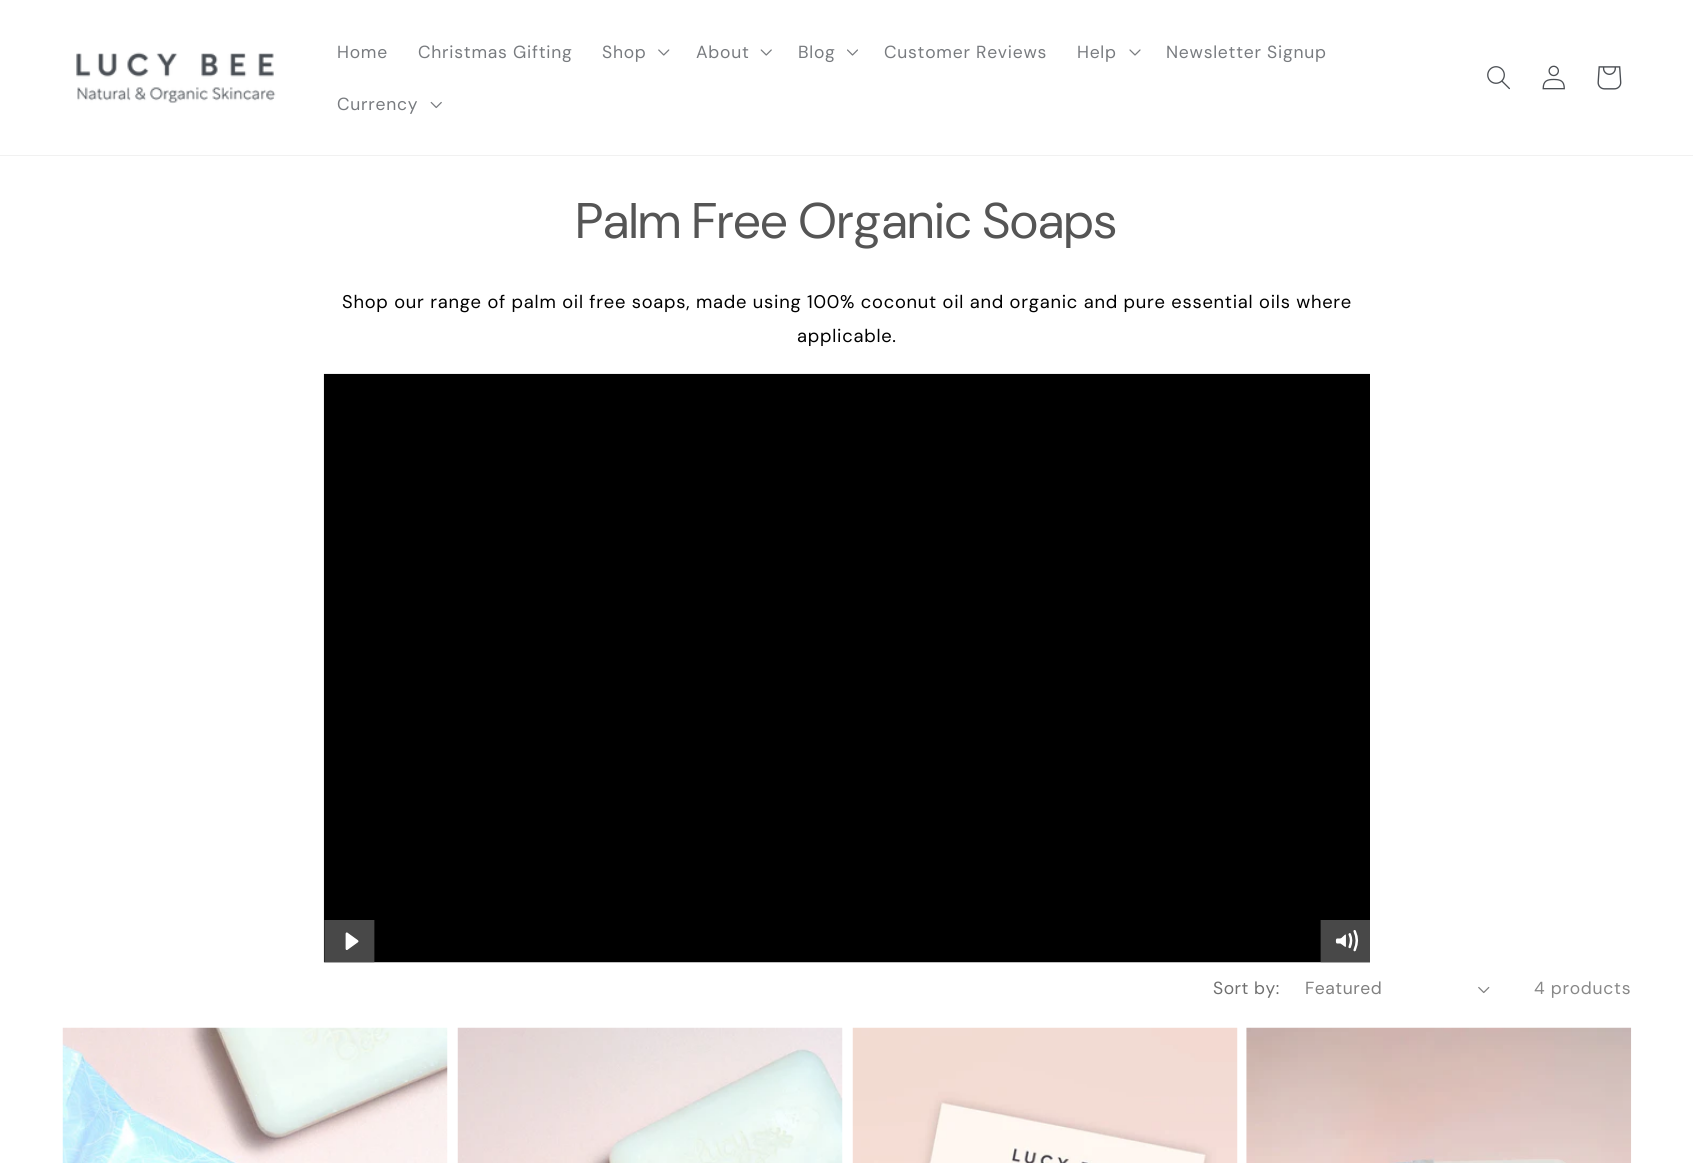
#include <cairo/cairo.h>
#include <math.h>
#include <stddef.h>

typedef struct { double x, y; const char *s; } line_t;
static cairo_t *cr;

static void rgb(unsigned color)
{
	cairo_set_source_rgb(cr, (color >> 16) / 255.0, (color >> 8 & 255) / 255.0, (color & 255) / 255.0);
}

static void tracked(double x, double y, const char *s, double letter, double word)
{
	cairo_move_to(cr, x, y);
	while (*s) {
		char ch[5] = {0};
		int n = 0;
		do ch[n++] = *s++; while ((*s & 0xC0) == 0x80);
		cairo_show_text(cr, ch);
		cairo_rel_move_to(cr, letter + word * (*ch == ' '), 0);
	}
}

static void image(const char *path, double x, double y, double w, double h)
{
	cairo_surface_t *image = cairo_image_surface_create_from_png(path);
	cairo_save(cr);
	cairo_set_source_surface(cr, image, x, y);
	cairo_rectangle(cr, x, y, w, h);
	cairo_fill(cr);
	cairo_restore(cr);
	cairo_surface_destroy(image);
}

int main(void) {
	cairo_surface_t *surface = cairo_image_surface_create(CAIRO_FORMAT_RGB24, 1693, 1163);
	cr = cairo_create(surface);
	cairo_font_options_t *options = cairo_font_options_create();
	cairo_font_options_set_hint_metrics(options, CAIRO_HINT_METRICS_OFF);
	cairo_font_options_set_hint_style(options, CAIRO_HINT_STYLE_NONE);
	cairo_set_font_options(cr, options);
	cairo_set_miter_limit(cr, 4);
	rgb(0xffffff);
	cairo_paint(cr);
	rgb(0xf1f1f1);
	cairo_rectangle(cr, 0, 155, 1693, 1);
	cairo_fill(cr);
	image("img/1.png", 76, 52, 200, 52);
	image("img/2.png", 658, 49, 12, 7);
	image("img/3.png", 760, 49, 12, 7);
	image("img/4.png", 847, 49, 11, 7);
	image("img/5.png", 1129, 49, 12, 7);
	image("img/6.png", 430, 101, 12, 8);
	image("img/7.png", 1487, 66, 23, 24);
	image("img/8.png", 1542, 65, 23, 25);
	image("img/9.png", 1597, 66, 25, 24);
	image("img/10.png", 323, 373, 1047, 590);
	image("img/11.png", 1478, 986, 12, 8);
	image("img/12.png", 62, 1027, 386, 136);
	image("img/13.png", 457, 1027, 386, 136);
	image("img/14.png", 852, 1027, 386, 136);
	image("img/15.png", 1246, 1027, 386, 136);
	cairo_select_font_face(cr, "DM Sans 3", CAIRO_FONT_SLANT_NORMAL, CAIRO_FONT_WEIGHT_NORMAL);
	cairo_set_font_size(cr, 17.5);
	rgb(0x787b7f);
	{
		static const line_t items[] = {
			{337, 58, "Home"},
			{418, 58, "Christmas Gifting"},
			{602, 58, "Shop"},
			{696, 58, "About"},
			{798, 58, "Blog"},
			{884, 58, "Customer Reviews"},
			{1077, 58, "Help"},
			{1166, 58, "Newsletter Signup"},
			{337, 110, "Currency"},
		};
		for (size_t i = 0; i < sizeof items / sizeof *items; i++) {
			tracked(items[i].x, items[i].y, items[i].s, 0.75, 0);
		}
	}
	cairo_select_font_face(cr, "DM Sans", CAIRO_FONT_SLANT_NORMAL, CAIRO_FONT_WEIGHT_NORMAL);
	cairo_set_font_size(cr, 50);
	rgb(0x555555);
	tracked(576, 238, "Palm Free Organic Soaps", 0.75, 0);
	cairo_select_font_face(cr, "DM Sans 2", CAIRO_FONT_SLANT_NORMAL, CAIRO_FONT_WEIGHT_NORMAL);
	cairo_set_font_size(cr, 18.33);
	rgb(0x000000);
	tracked(342, 308, "Shop our range of palm oil free soaps, made using 100% coconut oil and organic and pure essential oils where", 0.75, 0);
	tracked(797, 342, "applicable.", 0.75, 0);
	cairo_select_font_face(cr, "DM Sans 3", CAIRO_FONT_SLANT_NORMAL, CAIRO_FONT_WEIGHT_NORMAL);
	cairo_set_font_size(cr, 17.5);
	rgb(0x6f6f6f);
	tracked(1213, 994, "Sort by:", 0.5, 0);
	rgb(0x808080);
	tracked(1305, 994, "Featured", 0.5, 0);
	rgb(0x888888);
	tracked(1534, 994, "4 products", 0.75, 0);
	cairo_surface_write_to_png(surface, "page.png");
	cairo_font_options_destroy(options);
	cairo_destroy(cr);
	cairo_surface_destroy(surface);
	return 0;
}
